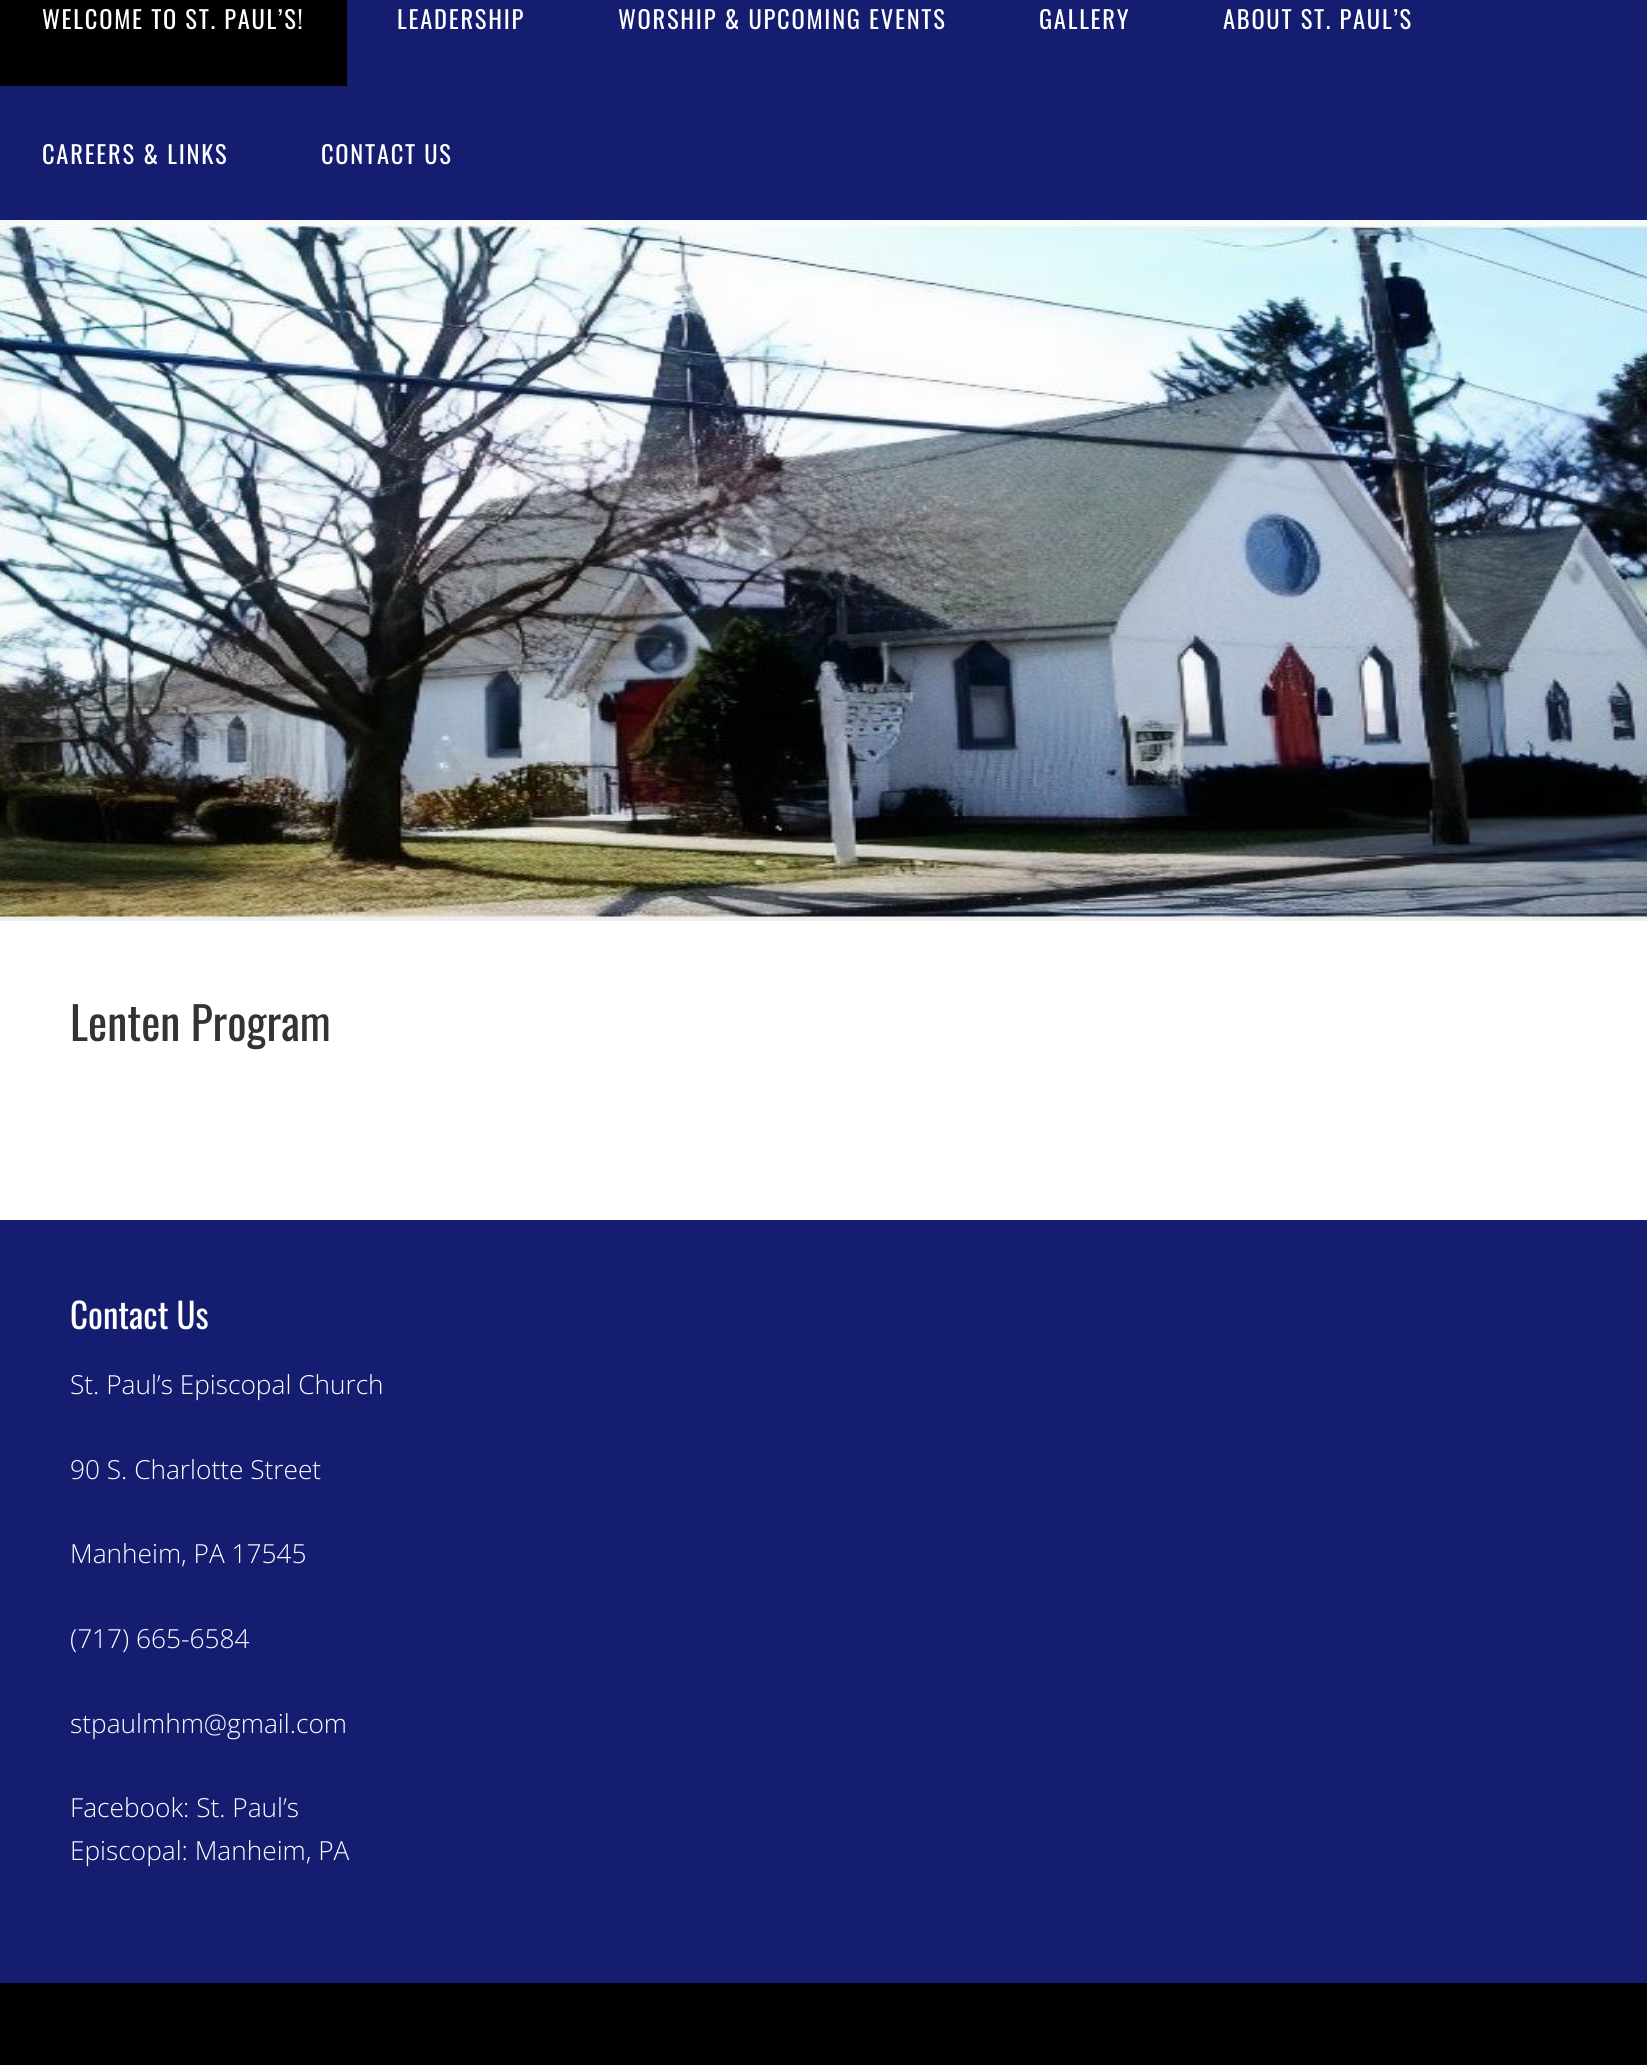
#include <cairo/cairo.h>
#include <math.h>
#include <stddef.h>

typedef struct { double x, y; const char *s; } line_t;
typedef struct { double x, y, w, h; unsigned color; } box_t;
static cairo_t *cr;

static void rgb(unsigned color)
{
	cairo_set_source_rgb(cr, (color >> 16) / 255.0, (color >> 8 & 255) / 255.0, (color & 255) / 255.0);
}

static void tracked(double x, double y, const char *s, double letter, double word)
{
	cairo_move_to(cr, x, y);
	while (*s) {
		char ch[5] = {0};
		int n = 0;
		do ch[n++] = *s++; while ((*s & 0xC0) == 0x80);
		cairo_show_text(cr, ch);
		cairo_rel_move_to(cr, letter + word * (*ch == ' '), 0);
	}
}

static void image(const char *path, double x, double y, double w, double h)
{
	cairo_surface_t *image = cairo_image_surface_create_from_png(path);
	cairo_save(cr);
	cairo_set_source_surface(cr, image, x, y);
	cairo_rectangle(cr, x, y, w, h);
	cairo_fill(cr);
	cairo_restore(cr);
	cairo_surface_destroy(image);
}

int main(void) {
	cairo_surface_t *surface = cairo_image_surface_create(CAIRO_FORMAT_RGB24, 1647, 2065);
	cr = cairo_create(surface);
	cairo_font_options_t *options = cairo_font_options_create();
	cairo_font_options_set_hint_metrics(options, CAIRO_HINT_METRICS_OFF);
	cairo_font_options_set_hint_style(options, CAIRO_HINT_STYLE_NONE);
	cairo_set_font_options(cr, options);
	cairo_set_miter_limit(cr, 4);
	rgb(0xededed);
	cairo_paint(cr);
	rgb(0x141d70);
	cairo_rectangle(cr, 0, 0, 1647, 220);
	cairo_fill(cr);
	rgb(0x000000);
	cairo_rectangle(cr, 0, 0, 347, 86);
	cairo_fill(cr);
	image("img/1.png", 0, 220, 1647, 697);
	{
		static const box_t items[] = {
			{0, 921, 1647, 299, 0xffffff},
			{0, 1220, 1647, 763, 0x141d70},
			{0, 1983, 1647, 82, 0x000000},
		};
		for (size_t i = 0; i < sizeof items / sizeof *items; i++) {
			rgb(items[i].color);
			cairo_rectangle(cr, items[i].x, items[i].y, items[i].w, items[i].h);
			cairo_fill(cr);
		}
	}
	cairo_select_font_face(cr, "Oswald", CAIRO_FONT_SLANT_NORMAL, CAIRO_FONT_WEIGHT_NORMAL);
	cairo_set_font_size(cr, 24.5);
	rgb(0xffffff);
	{
		static const line_t items[] = {
			{42, 29, "WELCOME TO ST. PAUL’S!"},
			{397, 29, "LEADERSHIP"},
			{618, 29, "WORSHIP & UPCOMING EVENTS"},
			{1039, 29, "GALLERY"},
			{1223, 29, "ABOUT ST. PAUL’S"},
			{42, 164, "CAREERS & LINKS"},
			{321, 164, "CONTACT US"},
		};
		for (size_t i = 0; i < sizeof items / sizeof *items; i++) {
			tracked(items[i].x, items[i].y, items[i].s, 1.75, 0);
		}
	}
	cairo_set_font_size(cr, 45.5);
	rgb(0x333333);
	cairo_move_to(cr, 70, 1041);
	cairo_show_text(cr, "Lenten Program");
	cairo_set_font_size(cr, 35);
	rgb(0xffffff);
	cairo_move_to(cr, 70, 1329);
	cairo_show_text(cr, "Contact Us");
	cairo_select_font_face(cr, "Open Sans Light", CAIRO_FONT_SLANT_NORMAL, CAIRO_FONT_WEIGHT_NORMAL);
	cairo_set_font_size(cr, 26.25);
	{
		static const line_t items[] = {
			{70, 1394, "St. Paul’s Episcopal Church"},
			{70, 1479, "90 S. Charlotte Street"},
			{70, 1563, "Manheim, PA 17545"},
			{70, 1648, "(717) 665-6584"},
			{70, 1733, "stpaulmhm@gmail.com"},
			{70, 1817, "Facebook: St. Paul’s"},
			{70, 1860, "Episcopal: Manheim, PA"},
		};
		for (size_t i = 0; i < sizeof items / sizeof *items; i++) {
			cairo_move_to(cr, items[i].x, items[i].y);
			cairo_show_text(cr, items[i].s);
		}
	}
	cairo_surface_write_to_png(surface, "page.png");
	cairo_font_options_destroy(options);
	cairo_destroy(cr);
	cairo_surface_destroy(surface);
	return 0;
}
